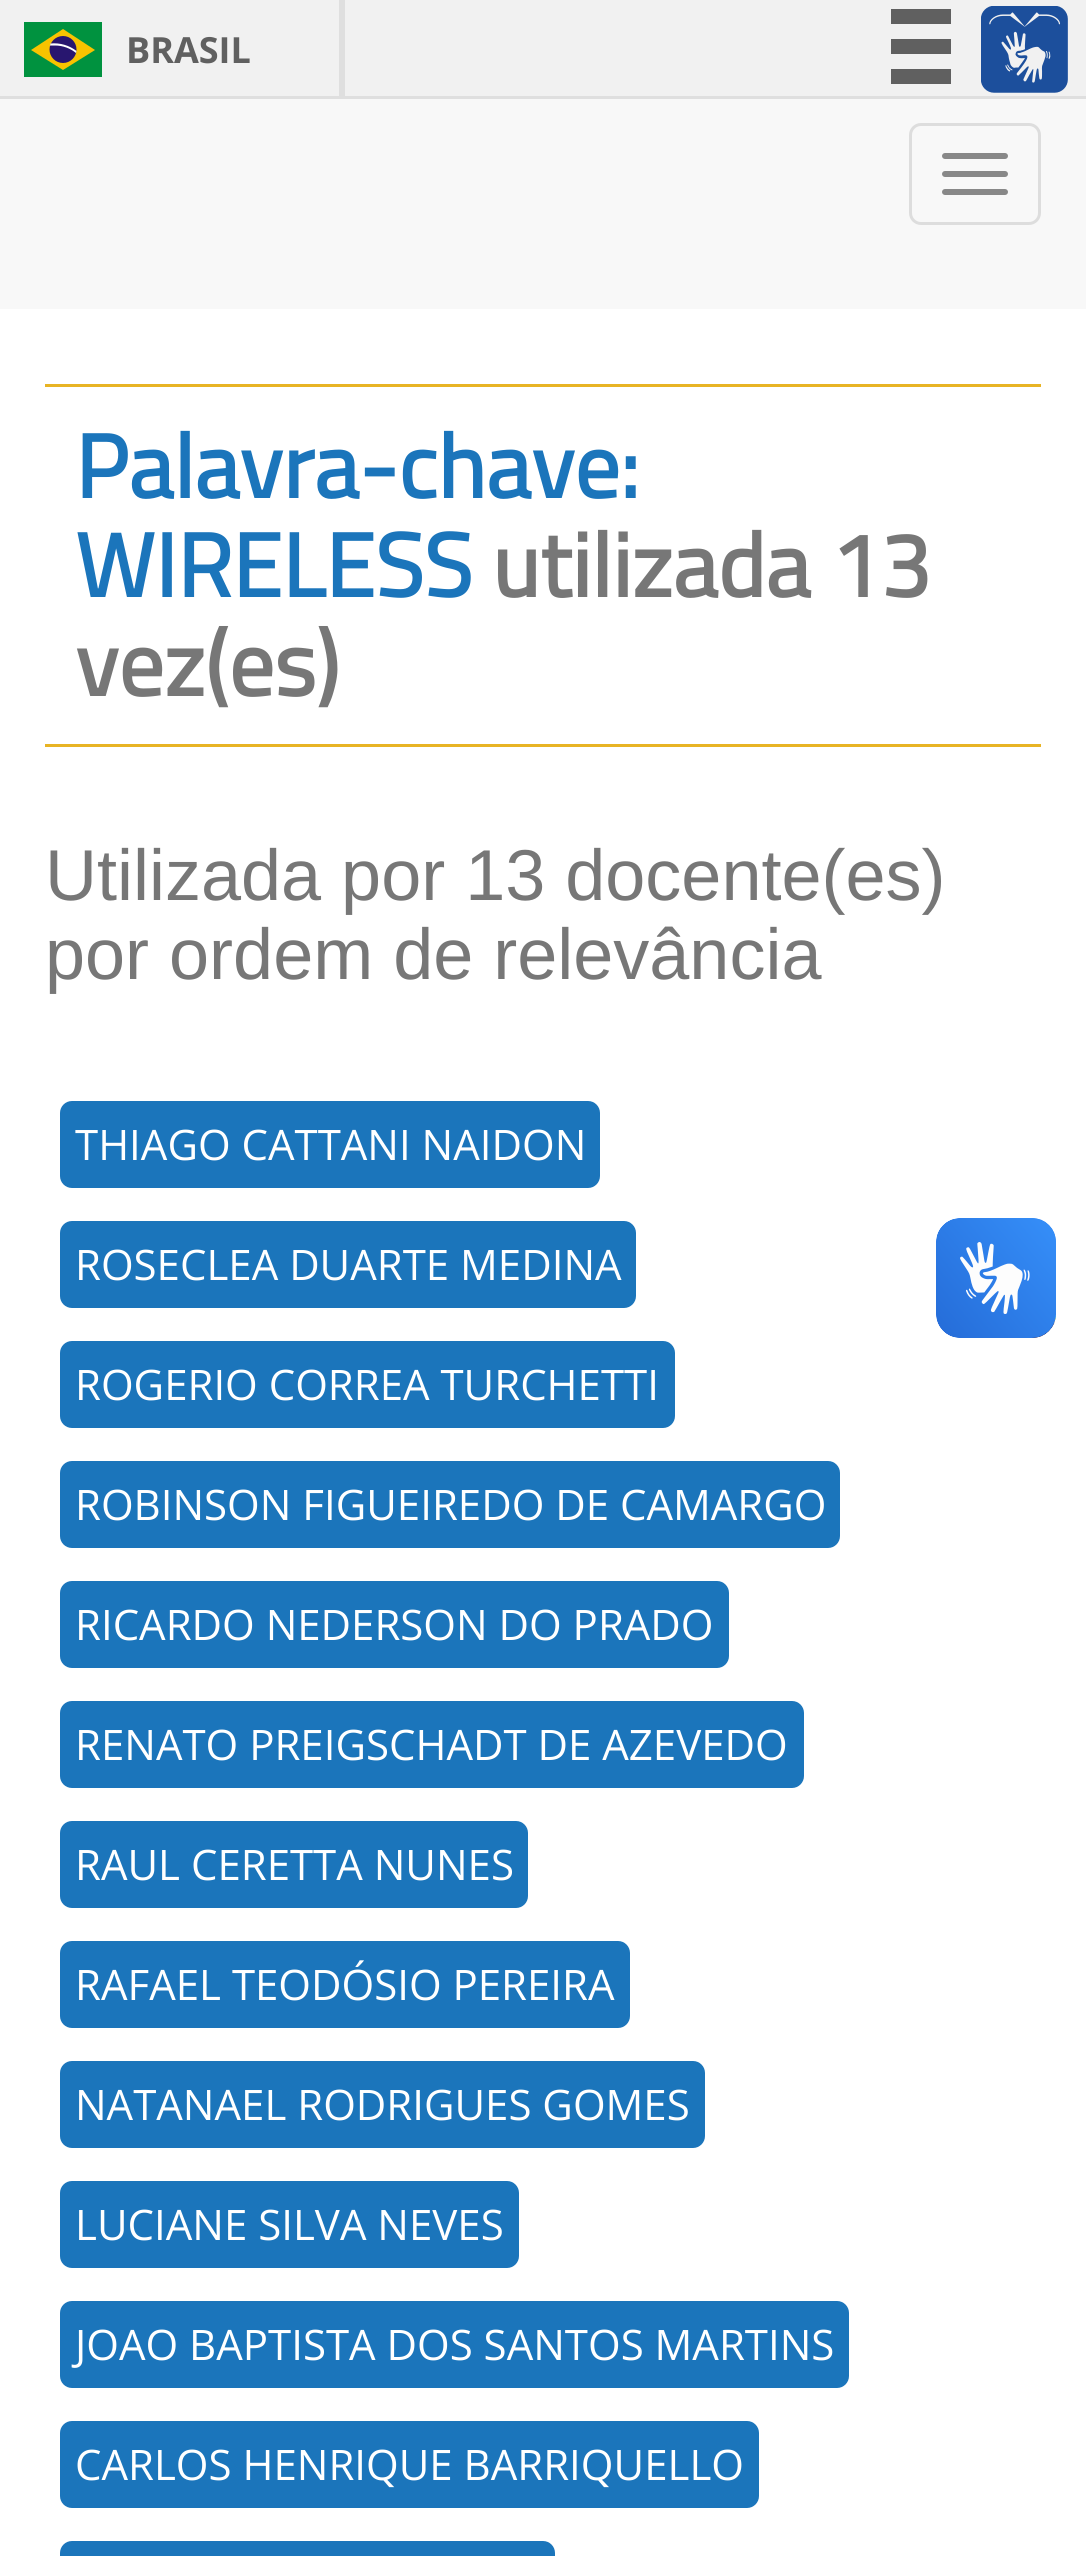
#include <cairo/cairo.h>
#include <math.h>
#include <stddef.h>

typedef struct { double x, y; const char *s; } line_t;
typedef struct { double x, y, w, h; unsigned color; } box_t;
static cairo_t *cr;

static void rgb(unsigned color)
{
	cairo_set_source_rgb(cr, (color >> 16) / 255.0, (color >> 8 & 255) / 255.0, (color & 255) / 255.0);
}

static void rrect(double x, double y, double w, double h, double r)
{
	cairo_new_sub_path(cr);
	cairo_arc(cr, x + w - r, y + h - r, r, 0, M_PI / 2);
	cairo_arc(cr, x + r, y + h - r, r, M_PI / 2, M_PI);
	cairo_arc(cr, x + r, y + r, r, M_PI, 1.5 * M_PI);
	cairo_arc(cr, x + w - r, y + r, r, 1.5 * M_PI, 2 * M_PI);
	cairo_close_path(cr);
}

static void image(const char *path, double x, double y, double w, double h)
{
	cairo_surface_t *image = cairo_image_surface_create_from_png(path);
	cairo_save(cr);
	cairo_set_source_surface(cr, image, x, y);
	cairo_rectangle(cr, x, y, w, h);
	cairo_fill(cr);
	cairo_restore(cr);
	cairo_surface_destroy(image);
}

int main(void) {
	cairo_surface_t *surface = cairo_image_surface_create(CAIRO_FORMAT_RGB24, 1086, 2556);
	cr = cairo_create(surface);
	cairo_font_options_t *options = cairo_font_options_create();
	cairo_font_options_set_hint_metrics(options, CAIRO_HINT_METRICS_OFF);
	cairo_font_options_set_hint_style(options, CAIRO_HINT_STYLE_NONE);
	cairo_set_font_options(cr, options);
	cairo_set_miter_limit(cr, 4);
	rgb(0xffffff);
	cairo_paint(cr);
	{
		static const box_t items[] = {
			{0, 0, 1086, 96, 0xf1f1f1},
			{0, 96, 1086, 3, 0xdfdfdf},
			{339, 0, 6, 96, 0xdfdfdf},
			{24, 22, 78, 55, 0x00923f},
		};
		for (size_t i = 0; i < sizeof items / sizeof *items; i++) {
			rgb(items[i].color);
			cairo_rectangle(cr, items[i].x, items[i].y, items[i].w, items[i].h);
			cairo_fill(cr);
		}
	}
	rgb(0xf8c300);
	cairo_new_path(cr);
	cairo_move_to(cr, 63, 29);
	cairo_line_to(cr, 31, 50);
	cairo_line_to(cr, 63, 70);
	cairo_line_to(cr, 95, 50);
	cairo_close_path(cr);
	cairo_fill(cr);
	rgb(0x28166f);
	cairo_arc(cr, 63, 49.5, 13.5, 0, 2 * M_PI);
	cairo_fill(cr);
	rgb(0xffffff);
	cairo_new_path(cr);
	cairo_move_to(cr, 55, 45.5);
	cairo_curve_to(cr, 63, 45.5, 70.5, 48.5, 76, 53);
	cairo_line_to(cr, 76.5, 51);
	cairo_curve_to(cr, 69.5, 45.5, 60, 42.5, 50.5, 43.5);
	cairo_line_to(cr, 50, 45.5);
	cairo_close_path(cr);
	cairo_fill(cr);
	{
		static const box_t items[] = {
			{891, 9, 60, 15, 0x606060},
			{891, 39, 60, 15, 0x606060},
			{891, 69, 60, 15, 0x606060},
		};
		for (size_t i = 0; i < sizeof items / sizeof *items; i++) {
			rgb(items[i].color);
			cairo_rectangle(cr, items[i].x, items[i].y, items[i].w, items[i].h);
			cairo_fill(cr);
		}
	}
	image("img/1.png", 981, 6, 87, 87);
	rgb(0xf8f8f8);
	cairo_rectangle(cr, 0, 99, 1086, 210);
	cairo_fill(cr);
	rrect(910.5, 124.5, 129, 99, 10.5);
	rgb(0xdddddd);
	cairo_set_line_width(cr, 3);
	cairo_stroke(cr);
	rgb(0x888888);
	rrect(942, 153, 66, 6, 3);
	cairo_fill(cr);
	rrect(942, 171, 66, 6, 3);
	cairo_fill(cr);
	rrect(942, 189, 66, 6, 3);
	cairo_fill(cr);
	rgb(0xe8b424);
	cairo_rectangle(cr, 45, 384, 996, 3);
	cairo_fill(cr);
	cairo_rectangle(cr, 45, 744, 996, 3);
	cairo_fill(cr);
	rgb(0x1b75bb);
	rrect(60, 1101, 540, 87, 12);
	cairo_fill(cr);
	rrect(60, 1221, 576, 87, 12);
	cairo_fill(cr);
	rrect(60, 1341, 615, 87, 12);
	cairo_fill(cr);
	rrect(60, 1461, 780, 87, 12);
	cairo_fill(cr);
	rrect(60, 1581, 669, 87, 12);
	cairo_fill(cr);
	rrect(60, 1701, 744, 87, 12);
	cairo_fill(cr);
	rrect(60, 1821, 468, 87, 12);
	cairo_fill(cr);
	rrect(60, 1941, 570, 87, 12);
	cairo_fill(cr);
	rrect(60, 2061, 645, 87, 12);
	cairo_fill(cr);
	rrect(60, 2181, 459, 87, 12);
	cairo_fill(cr);
	rrect(60, 2301, 789, 87, 12);
	cairo_fill(cr);
	rrect(60, 2421, 699, 87, 12);
	cairo_fill(cr);
	rrect(60, 2541, 495, 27, 12);
	cairo_fill(cr);
	image("img/2.png", 936, 1218, 120, 120);
	image("img/3.png", 936, 1218, 120, 120);
	cairo_select_font_face(cr, "Open Sans", CAIRO_FONT_SLANT_NORMAL, CAIRO_FONT_WEIGHT_BOLD);
	cairo_set_font_size(cr, 36);
	rgb(0x606060);
	cairo_move_to(cr, 126, 63);
	cairo_show_text(cr, "BRASIL");
	cairo_select_font_face(cr, "Titillium Web", CAIRO_FONT_SLANT_NORMAL, CAIRO_FONT_WEIGHT_BOLD);
	cairo_set_font_size(cr, 90);
	rgb(0x1b75bb);
	cairo_move_to(cr, 75, 498);
	cairo_show_text(cr, "Palavra-chave:");
	cairo_move_to(cr, 75, 597);
	cairo_show_text(cr, "WIRELESS");
	rgb(0x777777);
	cairo_move_to(cr, 492, 597);
	cairo_show_text(cr, "utilizada 13");
	cairo_move_to(cr, 75, 696);
	cairo_show_text(cr, "vez(es)");
	cairo_select_font_face(cr, "Liberation Sans", CAIRO_FONT_SLANT_NORMAL, CAIRO_FONT_WEIGHT_NORMAL);
	cairo_set_font_size(cr, 72);
	cairo_move_to(cr, 45, 900);
	cairo_show_text(cr, "Utilizada por 13 docente(es)");
	cairo_move_to(cr, 45, 979);
	cairo_show_text(cr, "por ordem de relevância");
	cairo_select_font_face(cr, "Open Sans", CAIRO_FONT_SLANT_NORMAL, CAIRO_FONT_WEIGHT_NORMAL);
	cairo_set_font_size(cr, 42);
	rgb(0xffffff);
	{
		static const line_t items[] = {
			{75, 1160, "THIAGO CATTANI NAIDON"},
			{75, 1280, "ROSECLEA DUARTE MEDINA"},
			{75, 1400, "ROGERIO CORREA TURCHETTI"},
			{75, 1520, "ROBINSON FIGUEIREDO DE CAMARGO"},
			{75, 1640, "RICARDO NEDERSON DO PRADO"},
			{75, 1760, "RENATO PREIGSCHADT DE AZEVEDO"},
			{75, 1880, "RAUL CERETTA NUNES"},
			{75, 2000, "RAFAEL TEODÓSIO PEREIRA"},
			{75, 2120, "NATANAEL RODRIGUES GOMES"},
			{75, 2240, "LUCIANE SILVA NEVES"},
			{75, 2360, "JOAO BAPTISTA DOS SANTOS MARTINS"},
			{75, 2480, "CARLOS HENRIQUE BARRIQUELLO"},
		};
		for (size_t i = 0; i < sizeof items / sizeof *items; i++) {
			cairo_move_to(cr, items[i].x, items[i].y);
			cairo_show_text(cr, items[i].s);
		}
	}
	cairo_surface_write_to_png(surface, "page.png");
	cairo_font_options_destroy(options);
	cairo_destroy(cr);
	cairo_surface_destroy(surface);
	return 0;
}
